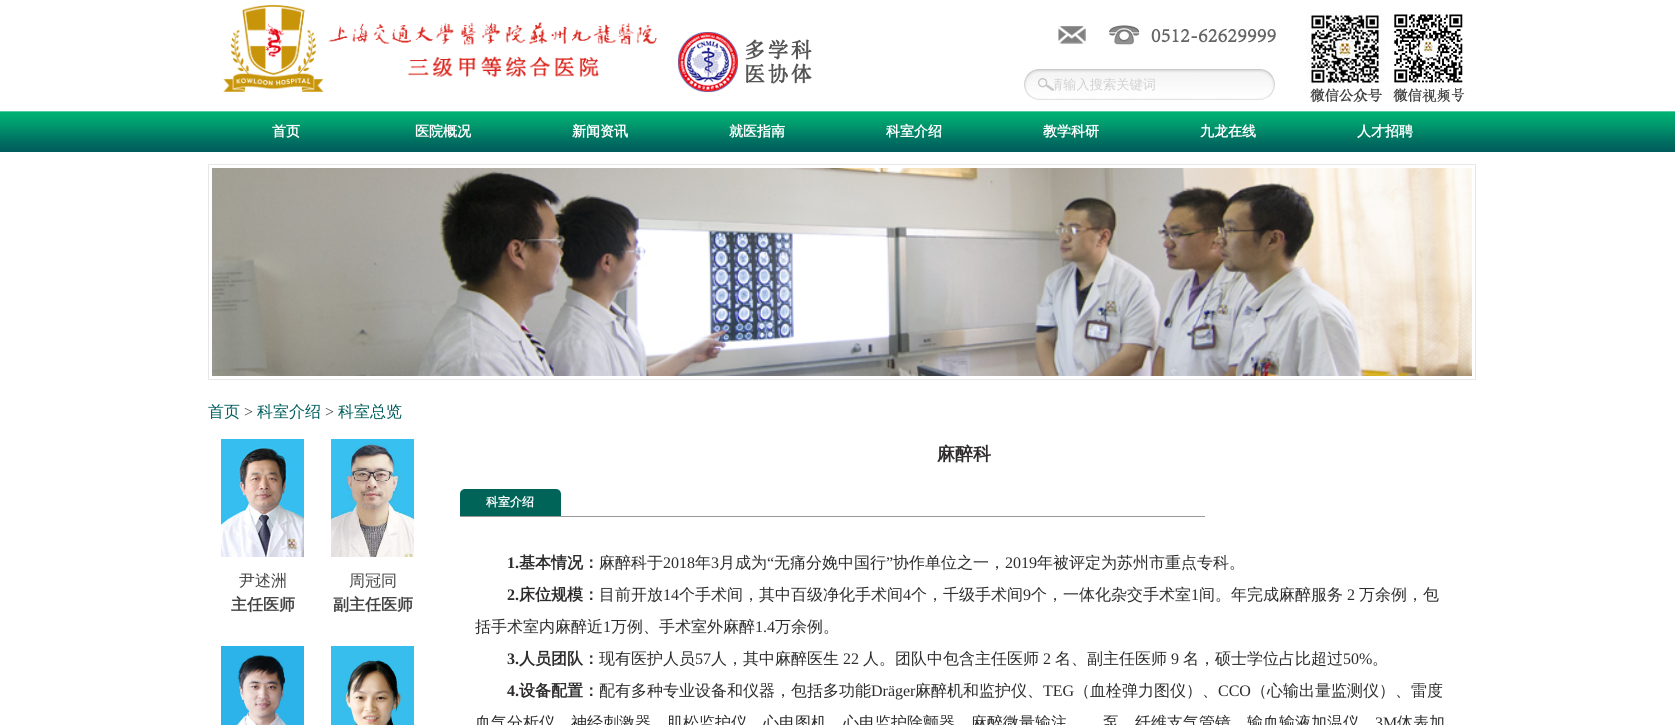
#include <cairo/cairo.h>
#include <math.h>
#include <stddef.h>

typedef struct { double x, y; const char *s; } line_t;
static cairo_t *cr;

static void rgb(unsigned color)
{
	cairo_set_source_rgb(cr, (color >> 16) / 255.0, (color >> 8 & 255) / 255.0, (color & 255) / 255.0);
}

static void image(const char *path, double x, double y, double w, double h)
{
	cairo_surface_t *image = cairo_image_surface_create_from_png(path);
	cairo_save(cr);
	cairo_set_source_surface(cr, image, x, y);
	cairo_rectangle(cr, x, y, w, h);
	cairo_fill(cr);
	cairo_restore(cr);
	cairo_surface_destroy(image);
}

int main(void) {
	cairo_surface_t *surface = cairo_image_surface_create(CAIRO_FORMAT_RGB24, 1675, 725);
	cr = cairo_create(surface);
	cairo_font_options_t *options = cairo_font_options_create();
	cairo_font_options_set_hint_metrics(options, CAIRO_HINT_METRICS_OFF);
	cairo_font_options_set_hint_style(options, CAIRO_HINT_STYLE_NONE);
	cairo_set_font_options(cr, options);
	cairo_set_miter_limit(cr, 4);
	rgb(0xffffff);
	cairo_paint(cr);
	image("img/1.png", 0, 111, 1675, 41);
	image("img/2.png", 223, 5, 434, 87);
	image("img/3.png", 678, 32, 134, 60);
	image("img/4.png", 1058, 26, 28, 18);
	image("img/5.png", 1109, 25, 167, 20);
	image("img/6.png", 1306, 10, 79, 93);
	image("img/7.png", 1389, 14, 76, 89);
	image("img/9.png", 1054, 69, 221, 31);
	cairo_rectangle(cr, 208.5, 164.5, 1267, 215);
	rgb(0xe7e7e7);
	cairo_set_line_width(cr, 1);
	cairo_stroke(cr);
	image("img/10.png", 212, 168, 1260, 208);
	image("img/11.png", 221, 439, 83, 118);
	image("img/12.png", 331, 439, 83, 118);
	image("img/13.png", 221, 646, 83, 79);
	image("img/14.png", 331, 646, 83, 79);
	rgb(0x999999);
	cairo_rectangle(cr, 460, 516, 745, 1);
	cairo_fill(cr);
	image("img/15.png", 460, 489, 101, 27);
	cairo_select_font_face(cr, "WenQuanYi Zen Hei Medium", CAIRO_FONT_SLANT_NORMAL, CAIRO_FONT_WEIGHT_NORMAL);
	cairo_set_font_size(cr, 13.25);
	rgb(0xd1d1d1);
	cairo_move_to(cr, 1050, 89);
	cairo_show_text(cr, "请输入搜索关键词");
	image("img/8.png", 1024, 69, 30, 31);
	cairo_select_font_face(cr, "WenQuanYi Zen Hei", CAIRO_FONT_SLANT_NORMAL, CAIRO_FONT_WEIGHT_BOLD);
	cairo_set_font_size(cr, 14);
	rgb(0xffffff);
	{
		static const line_t items[] = {
			{272, 136, "首页"},
			{415, 136, "医院概况"},
			{572, 136, "新闻资讯"},
			{729, 136, "就医指南"},
			{886, 136, "科室介绍"},
			{1043, 136, "教学科研"},
			{1200, 136, "九龙在线"},
			{1357, 136, "人才招聘"},
		};
		for (size_t i = 0; i < sizeof items / sizeof *items; i++) {
			cairo_move_to(cr, items[i].x, items[i].y);
			cairo_show_text(cr, items[i].s);
		}
	}
	cairo_select_font_face(cr, "WenQuanYi Zen Hei Medium", CAIRO_FONT_SLANT_NORMAL, CAIRO_FONT_WEIGHT_NORMAL);
	cairo_set_font_size(cr, 16);
	rgb(0x005c5c);
	cairo_move_to(cr, 208, 417);
	cairo_show_text(cr, "首页");
	cairo_select_font_face(cr, "Liberation Serif", CAIRO_FONT_SLANT_NORMAL, CAIRO_FONT_WEIGHT_NORMAL);
	rgb(0x444444);
	cairo_move_to(cr, 244, 417);
	cairo_show_text(cr, ">");
	cairo_select_font_face(cr, "WenQuanYi Zen Hei Medium", CAIRO_FONT_SLANT_NORMAL, CAIRO_FONT_WEIGHT_NORMAL);
	rgb(0x005c5c);
	cairo_move_to(cr, 257, 417);
	cairo_show_text(cr, "科室介绍");
	cairo_select_font_face(cr, "Liberation Serif", CAIRO_FONT_SLANT_NORMAL, CAIRO_FONT_WEIGHT_NORMAL);
	rgb(0x444444);
	cairo_move_to(cr, 325, 417);
	cairo_show_text(cr, ">");
	cairo_select_font_face(cr, "WenQuanYi Zen Hei Medium", CAIRO_FONT_SLANT_NORMAL, CAIRO_FONT_WEIGHT_NORMAL);
	rgb(0x005c5c);
	cairo_move_to(cr, 338, 417);
	cairo_show_text(cr, "科室总览");
	rgb(0x444444);
	cairo_move_to(cr, 239, 586);
	cairo_show_text(cr, "尹述洲");
	cairo_select_font_face(cr, "WenQuanYi Zen Hei", CAIRO_FONT_SLANT_NORMAL, CAIRO_FONT_WEIGHT_BOLD);
	cairo_move_to(cr, 231, 610);
	cairo_show_text(cr, "主任医师");
	cairo_select_font_face(cr, "WenQuanYi Zen Hei Medium", CAIRO_FONT_SLANT_NORMAL, CAIRO_FONT_WEIGHT_NORMAL);
	cairo_move_to(cr, 349, 586);
	cairo_show_text(cr, "周冠同");
	cairo_select_font_face(cr, "WenQuanYi Zen Hei", CAIRO_FONT_SLANT_NORMAL, CAIRO_FONT_WEIGHT_BOLD);
	cairo_move_to(cr, 333, 610);
	cairo_show_text(cr, "副主任医师");
	cairo_set_font_size(cr, 18);
	rgb(0x2d2b2c);
	cairo_move_to(cr, 937, 460);
	cairo_show_text(cr, "麻醉科");
	cairo_set_font_size(cr, 12);
	rgb(0xffffff);
	cairo_move_to(cr, 486, 506);
	cairo_show_text(cr, "科室介绍");
	cairo_select_font_face(cr, "Liberation Serif", CAIRO_FONT_SLANT_NORMAL, CAIRO_FONT_WEIGHT_BOLD);
	cairo_set_font_size(cr, 16);
	rgb(0x2d2b2c);
	cairo_move_to(cr, 507, 568);
	cairo_show_text(cr, "1.");
	cairo_select_font_face(cr, "WenQuanYi Zen Hei", CAIRO_FONT_SLANT_NORMAL, CAIRO_FONT_WEIGHT_BOLD);
	cairo_move_to(cr, 519, 568);
	cairo_show_text(cr, "基本情况：");
	cairo_select_font_face(cr, "WenQuanYi Zen Hei Medium", CAIRO_FONT_SLANT_NORMAL, CAIRO_FONT_WEIGHT_NORMAL);
	cairo_move_to(cr, 599, 568);
	cairo_show_text(cr, "麻醉科于");
	cairo_select_font_face(cr, "Liberation Serif", CAIRO_FONT_SLANT_NORMAL, CAIRO_FONT_WEIGHT_NORMAL);
	cairo_move_to(cr, 663, 568);
	cairo_show_text(cr, "2018");
	cairo_select_font_face(cr, "WenQuanYi Zen Hei Medium", CAIRO_FONT_SLANT_NORMAL, CAIRO_FONT_WEIGHT_NORMAL);
	cairo_move_to(cr, 695, 568);
	cairo_show_text(cr, "年");
	cairo_select_font_face(cr, "Liberation Serif", CAIRO_FONT_SLANT_NORMAL, CAIRO_FONT_WEIGHT_NORMAL);
	cairo_move_to(cr, 711, 568);
	cairo_show_text(cr, "3");
	cairo_select_font_face(cr, "WenQuanYi Zen Hei Medium", CAIRO_FONT_SLANT_NORMAL, CAIRO_FONT_WEIGHT_NORMAL);
	cairo_move_to(cr, 719, 568);
	cairo_show_text(cr, "月成为");
	cairo_select_font_face(cr, "Liberation Serif", CAIRO_FONT_SLANT_NORMAL, CAIRO_FONT_WEIGHT_NORMAL);
	cairo_move_to(cr, 767, 568);
	cairo_show_text(cr, "“");
	cairo_select_font_face(cr, "WenQuanYi Zen Hei Medium", CAIRO_FONT_SLANT_NORMAL, CAIRO_FONT_WEIGHT_NORMAL);
	cairo_move_to(cr, 774, 568);
	cairo_show_text(cr, "无痛分娩中国行");
	cairo_select_font_face(cr, "Liberation Serif", CAIRO_FONT_SLANT_NORMAL, CAIRO_FONT_WEIGHT_NORMAL);
	cairo_move_to(cr, 886, 568);
	cairo_show_text(cr, "”");
	cairo_select_font_face(cr, "WenQuanYi Zen Hei Medium", CAIRO_FONT_SLANT_NORMAL, CAIRO_FONT_WEIGHT_NORMAL);
	cairo_move_to(cr, 893, 568);
	cairo_show_text(cr, "协作单位之一，");
	cairo_select_font_face(cr, "Liberation Serif", CAIRO_FONT_SLANT_NORMAL, CAIRO_FONT_WEIGHT_NORMAL);
	cairo_move_to(cr, 1005, 568);
	cairo_show_text(cr, "2019");
	cairo_select_font_face(cr, "WenQuanYi Zen Hei Medium", CAIRO_FONT_SLANT_NORMAL, CAIRO_FONT_WEIGHT_NORMAL);
	cairo_move_to(cr, 1037, 568);
	cairo_show_text(cr, "年被评定为苏州市重点专科。");
	cairo_select_font_face(cr, "Liberation Serif", CAIRO_FONT_SLANT_NORMAL, CAIRO_FONT_WEIGHT_BOLD);
	cairo_move_to(cr, 507, 600);
	cairo_show_text(cr, "2.");
	cairo_select_font_face(cr, "WenQuanYi Zen Hei", CAIRO_FONT_SLANT_NORMAL, CAIRO_FONT_WEIGHT_BOLD);
	cairo_move_to(cr, 519, 600);
	cairo_show_text(cr, "床位规模：");
	cairo_select_font_face(cr, "WenQuanYi Zen Hei Medium", CAIRO_FONT_SLANT_NORMAL, CAIRO_FONT_WEIGHT_NORMAL);
	cairo_move_to(cr, 599, 600);
	cairo_show_text(cr, "目前开放");
	cairo_select_font_face(cr, "Liberation Serif", CAIRO_FONT_SLANT_NORMAL, CAIRO_FONT_WEIGHT_NORMAL);
	cairo_move_to(cr, 663, 600);
	cairo_show_text(cr, "14");
	cairo_select_font_face(cr, "WenQuanYi Zen Hei Medium", CAIRO_FONT_SLANT_NORMAL, CAIRO_FONT_WEIGHT_NORMAL);
	cairo_move_to(cr, 679, 600);
	cairo_show_text(cr, "个手术间，其中百级净化手术间");
	cairo_select_font_face(cr, "Liberation Serif", CAIRO_FONT_SLANT_NORMAL, CAIRO_FONT_WEIGHT_NORMAL);
	cairo_move_to(cr, 903, 600);
	cairo_show_text(cr, "4");
	cairo_select_font_face(cr, "WenQuanYi Zen Hei Medium", CAIRO_FONT_SLANT_NORMAL, CAIRO_FONT_WEIGHT_NORMAL);
	cairo_move_to(cr, 911, 600);
	cairo_show_text(cr, "个，千级手术间");
	cairo_select_font_face(cr, "Liberation Serif", CAIRO_FONT_SLANT_NORMAL, CAIRO_FONT_WEIGHT_NORMAL);
	cairo_move_to(cr, 1023, 600);
	cairo_show_text(cr, "9");
	cairo_select_font_face(cr, "WenQuanYi Zen Hei Medium", CAIRO_FONT_SLANT_NORMAL, CAIRO_FONT_WEIGHT_NORMAL);
	cairo_move_to(cr, 1031, 600);
	cairo_show_text(cr, "个，一体化杂交手术室");
	cairo_select_font_face(cr, "Liberation Serif", CAIRO_FONT_SLANT_NORMAL, CAIRO_FONT_WEIGHT_NORMAL);
	cairo_move_to(cr, 1191, 600);
	cairo_show_text(cr, "1");
	cairo_select_font_face(cr, "WenQuanYi Zen Hei Medium", CAIRO_FONT_SLANT_NORMAL, CAIRO_FONT_WEIGHT_NORMAL);
	cairo_move_to(cr, 1199, 600);
	cairo_show_text(cr, "间。年完成麻醉服务");
	cairo_select_font_face(cr, "Liberation Serif", CAIRO_FONT_SLANT_NORMAL, CAIRO_FONT_WEIGHT_NORMAL);
	cairo_move_to(cr, 1347, 600);
	cairo_show_text(cr, "2");
	cairo_select_font_face(cr, "WenQuanYi Zen Hei Medium", CAIRO_FONT_SLANT_NORMAL, CAIRO_FONT_WEIGHT_NORMAL);
	cairo_move_to(cr, 1359, 600);
	cairo_show_text(cr, "万余例，包");
	cairo_move_to(cr, 475, 632);
	cairo_show_text(cr, "括手术室内麻醉近");
	cairo_select_font_face(cr, "Liberation Serif", CAIRO_FONT_SLANT_NORMAL, CAIRO_FONT_WEIGHT_NORMAL);
	cairo_move_to(cr, 603, 632);
	cairo_show_text(cr, "1");
	cairo_select_font_face(cr, "WenQuanYi Zen Hei Medium", CAIRO_FONT_SLANT_NORMAL, CAIRO_FONT_WEIGHT_NORMAL);
	cairo_move_to(cr, 611, 632);
	cairo_show_text(cr, "万例、手术室外麻醉");
	cairo_select_font_face(cr, "Liberation Serif", CAIRO_FONT_SLANT_NORMAL, CAIRO_FONT_WEIGHT_NORMAL);
	cairo_move_to(cr, 755, 632);
	cairo_show_text(cr, "1.4");
	cairo_select_font_face(cr, "WenQuanYi Zen Hei Medium", CAIRO_FONT_SLANT_NORMAL, CAIRO_FONT_WEIGHT_NORMAL);
	cairo_move_to(cr, 775, 632);
	cairo_show_text(cr, "万余例。");
	cairo_select_font_face(cr, "Liberation Serif", CAIRO_FONT_SLANT_NORMAL, CAIRO_FONT_WEIGHT_BOLD);
	cairo_move_to(cr, 507, 664);
	cairo_show_text(cr, "3.");
	cairo_select_font_face(cr, "WenQuanYi Zen Hei", CAIRO_FONT_SLANT_NORMAL, CAIRO_FONT_WEIGHT_BOLD);
	cairo_move_to(cr, 519, 664);
	cairo_show_text(cr, "人员团队：");
	cairo_select_font_face(cr, "WenQuanYi Zen Hei Medium", CAIRO_FONT_SLANT_NORMAL, CAIRO_FONT_WEIGHT_NORMAL);
	cairo_move_to(cr, 599, 664);
	cairo_show_text(cr, "现有医护人员");
	cairo_select_font_face(cr, "Liberation Serif", CAIRO_FONT_SLANT_NORMAL, CAIRO_FONT_WEIGHT_NORMAL);
	cairo_move_to(cr, 695, 664);
	cairo_show_text(cr, "57");
	cairo_select_font_face(cr, "WenQuanYi Zen Hei Medium", CAIRO_FONT_SLANT_NORMAL, CAIRO_FONT_WEIGHT_NORMAL);
	cairo_move_to(cr, 711, 664);
	cairo_show_text(cr, "人，其中麻醉医生");
	cairo_select_font_face(cr, "Liberation Serif", CAIRO_FONT_SLANT_NORMAL, CAIRO_FONT_WEIGHT_NORMAL);
	cairo_move_to(cr, 843, 664);
	cairo_show_text(cr, "22");
	cairo_select_font_face(cr, "WenQuanYi Zen Hei Medium", CAIRO_FONT_SLANT_NORMAL, CAIRO_FONT_WEIGHT_NORMAL);
	cairo_move_to(cr, 863, 664);
	cairo_show_text(cr, "人。团队中包含主任医师");
	cairo_select_font_face(cr, "Liberation Serif", CAIRO_FONT_SLANT_NORMAL, CAIRO_FONT_WEIGHT_NORMAL);
	cairo_move_to(cr, 1043, 664);
	cairo_show_text(cr, "2");
	cairo_select_font_face(cr, "WenQuanYi Zen Hei Medium", CAIRO_FONT_SLANT_NORMAL, CAIRO_FONT_WEIGHT_NORMAL);
	cairo_move_to(cr, 1055, 664);
	cairo_show_text(cr, "名、副主任医师");
	cairo_select_font_face(cr, "Liberation Serif", CAIRO_FONT_SLANT_NORMAL, CAIRO_FONT_WEIGHT_NORMAL);
	cairo_move_to(cr, 1171, 664);
	cairo_show_text(cr, "9");
	cairo_select_font_face(cr, "WenQuanYi Zen Hei Medium", CAIRO_FONT_SLANT_NORMAL, CAIRO_FONT_WEIGHT_NORMAL);
	cairo_move_to(cr, 1183, 664);
	cairo_show_text(cr, "名，硕士学位占比超过");
	cairo_select_font_face(cr, "Liberation Serif", CAIRO_FONT_SLANT_NORMAL, CAIRO_FONT_WEIGHT_NORMAL);
	cairo_move_to(cr, 1343, 664);
	cairo_show_text(cr, "50%");
	cairo_select_font_face(cr, "WenQuanYi Zen Hei Medium", CAIRO_FONT_SLANT_NORMAL, CAIRO_FONT_WEIGHT_NORMAL);
	cairo_move_to(cr, 1372, 664);
	cairo_show_text(cr, "。");
	cairo_select_font_face(cr, "Liberation Serif", CAIRO_FONT_SLANT_NORMAL, CAIRO_FONT_WEIGHT_BOLD);
	cairo_move_to(cr, 507, 696);
	cairo_show_text(cr, "4.");
	cairo_select_font_face(cr, "WenQuanYi Zen Hei", CAIRO_FONT_SLANT_NORMAL, CAIRO_FONT_WEIGHT_BOLD);
	cairo_move_to(cr, 519, 696);
	cairo_show_text(cr, "设备配置：");
	cairo_select_font_face(cr, "WenQuanYi Zen Hei Medium", CAIRO_FONT_SLANT_NORMAL, CAIRO_FONT_WEIGHT_NORMAL);
	cairo_move_to(cr, 599, 696);
	cairo_show_text(cr, "配有多种专业设备和仪器，包括多功能");
	cairo_select_font_face(cr, "Liberation Serif", CAIRO_FONT_SLANT_NORMAL, CAIRO_FONT_WEIGHT_NORMAL);
	cairo_move_to(cr, 871, 696);
	cairo_show_text(cr, "Dräger");
	cairo_select_font_face(cr, "WenQuanYi Zen Hei Medium", CAIRO_FONT_SLANT_NORMAL, CAIRO_FONT_WEIGHT_NORMAL);
	cairo_move_to(cr, 915, 696);
	cairo_show_text(cr, "麻醉机和监护仪、");
	cairo_select_font_face(cr, "Liberation Serif", CAIRO_FONT_SLANT_NORMAL, CAIRO_FONT_WEIGHT_NORMAL);
	cairo_move_to(cr, 1043, 696);
	cairo_show_text(cr, "TEG");
	cairo_select_font_face(cr, "WenQuanYi Zen Hei Medium", CAIRO_FONT_SLANT_NORMAL, CAIRO_FONT_WEIGHT_NORMAL);
	cairo_move_to(cr, 1074, 696);
	cairo_show_text(cr, "（血栓弹力图仪）、");
	cairo_select_font_face(cr, "Liberation Serif", CAIRO_FONT_SLANT_NORMAL, CAIRO_FONT_WEIGHT_NORMAL);
	cairo_move_to(cr, 1218, 696);
	cairo_show_text(cr, "CCO");
	cairo_select_font_face(cr, "WenQuanYi Zen Hei Medium", CAIRO_FONT_SLANT_NORMAL, CAIRO_FONT_WEIGHT_NORMAL);
	{
		static const line_t items[] = {
			{1251, 696, "（心输出量监测仪）、雷度"},
			{475, 728, "血气分析仪、神经刺激器、肌松监护仪、心电图机、心电监护除颤器、麻醉微量输注"},
			{1103, 728, "泵、纤维支气管镜、输血输液加温仪"},
		};
		for (size_t i = 0; i < sizeof items / sizeof *items; i++) {
			cairo_move_to(cr, items[i].x, items[i].y);
			cairo_show_text(cr, items[i].s);
		}
	}
	cairo_select_font_face(cr, "Liberation Serif", CAIRO_FONT_SLANT_NORMAL, CAIRO_FONT_WEIGHT_NORMAL);
	cairo_move_to(cr, 1375, 728);
	cairo_show_text(cr, "3M");
	cairo_select_font_face(cr, "WenQuanYi Zen Hei Medium", CAIRO_FONT_SLANT_NORMAL, CAIRO_FONT_WEIGHT_NORMAL);
	cairo_move_to(cr, 1397, 728);
	cairo_show_text(cr, "体表加");
	cairo_surface_write_to_png(surface, "page.png");
	cairo_font_options_destroy(options);
	cairo_destroy(cr);
	cairo_surface_destroy(surface);
	return 0;
}
